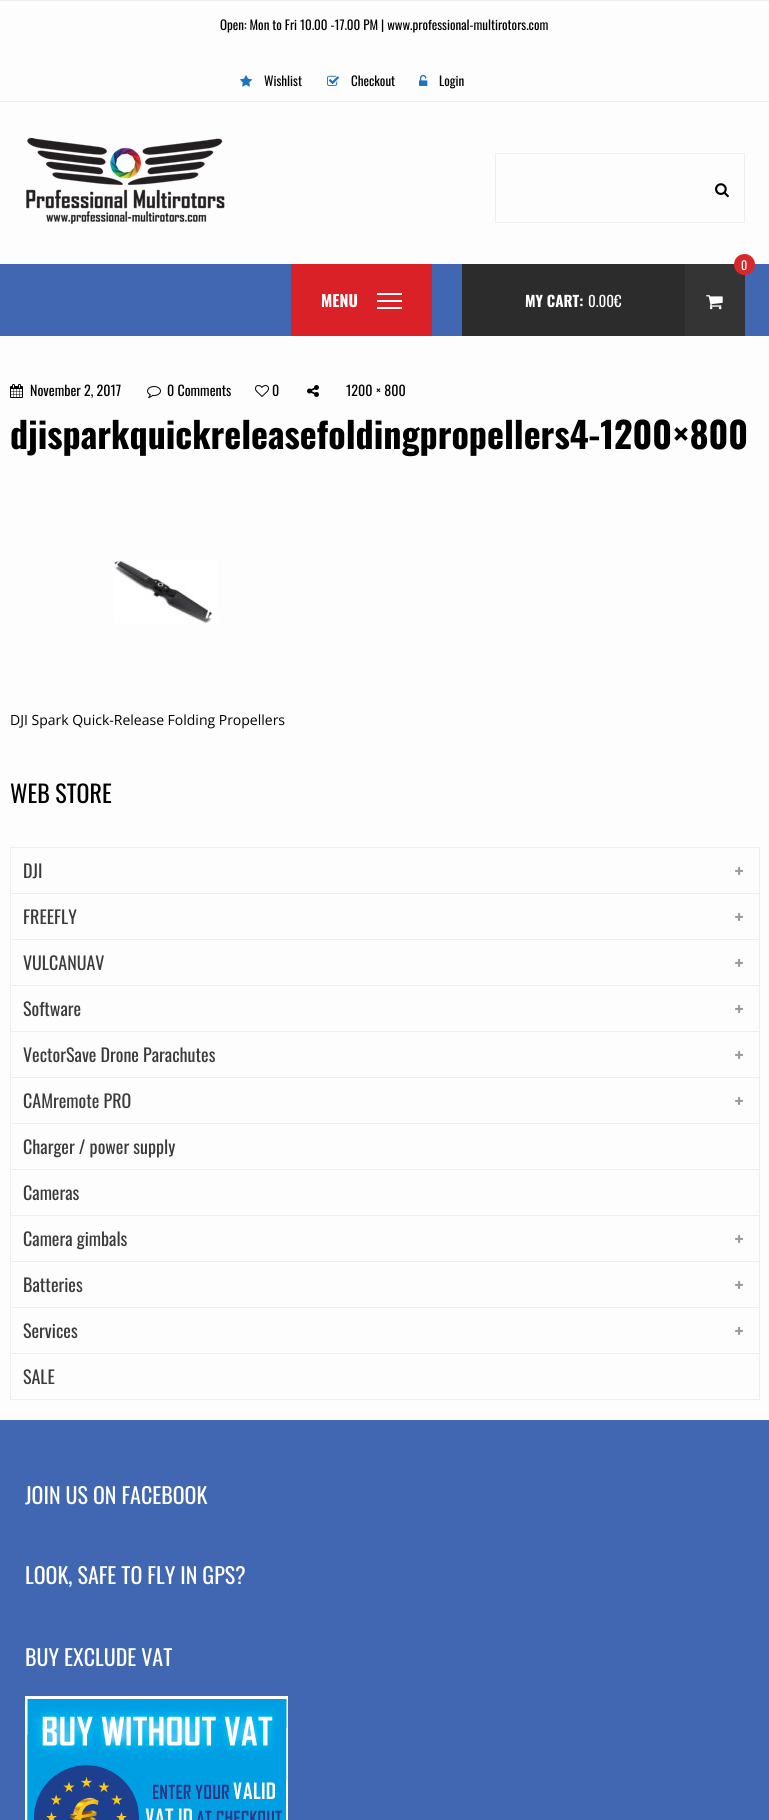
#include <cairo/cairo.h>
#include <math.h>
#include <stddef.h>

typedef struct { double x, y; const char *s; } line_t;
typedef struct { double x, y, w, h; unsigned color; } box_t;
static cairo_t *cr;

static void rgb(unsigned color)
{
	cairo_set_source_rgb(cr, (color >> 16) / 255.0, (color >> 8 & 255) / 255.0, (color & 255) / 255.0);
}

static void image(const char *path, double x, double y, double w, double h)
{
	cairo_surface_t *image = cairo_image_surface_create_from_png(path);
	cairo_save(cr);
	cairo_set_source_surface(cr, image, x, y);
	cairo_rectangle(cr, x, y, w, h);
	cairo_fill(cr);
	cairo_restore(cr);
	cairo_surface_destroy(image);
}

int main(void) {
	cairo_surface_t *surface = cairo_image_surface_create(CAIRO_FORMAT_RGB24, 769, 1820);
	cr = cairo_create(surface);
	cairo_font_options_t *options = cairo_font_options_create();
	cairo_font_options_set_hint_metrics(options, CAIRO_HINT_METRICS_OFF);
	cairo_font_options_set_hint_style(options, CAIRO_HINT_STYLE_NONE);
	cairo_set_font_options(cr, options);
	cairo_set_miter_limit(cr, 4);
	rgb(0xfdfdfd);
	cairo_paint(cr);
	rgb(0xededed);
	cairo_rectangle(cr, 0, 0, 769, 1);
	cairo_fill(cr);
	cairo_rectangle(cr, 0, 101, 769, 1);
	cairo_fill(cr);
	image("img/1.png", 240, 75, 12, 12);
	image("img/2.png", 327, 75, 12, 11);
	image("img/3.png", 419, 74, 9, 12);
	image("img/4.png", 26, 138, 199, 86);
	cairo_rectangle(cr, 495.5, 153.5, 249, 69);
	rgb(0xeeeeee);
	cairo_set_line_width(cr, 1);
	cairo_stroke(cr);
	image("img/5.png", 715, 183, 14, 15);
	{
		static const box_t items[] = {
			{0, 264, 769, 72, 0x4267b2},
			{291, 264, 141, 72, 0xda2127},
			{377, 293, 25, 2, 0xffffff},
			{377, 307, 25, 2, 0xffffff},
			{377, 300, 25, 2, 0xffffff},
			{462, 264, 223, 72, 0x2c2c2c},
			{685, 264, 60, 72, 0x343434},
		};
		for (size_t i = 0; i < sizeof items / sizeof *items; i++) {
			rgb(items[i].color);
			cairo_rectangle(cr, items[i].x, items[i].y, items[i].w, items[i].h);
			cairo_fill(cr);
		}
	}
	rgb(0xd5292c);
	cairo_arc(cr, 744.5, 264.5, 10.5, 0, 2 * M_PI);
	cairo_fill(cr);
	image("img/6.png", 706, 295, 17, 15);
	image("img/7.png", 10, 384, 13, 14);
	image("img/8.png", 147, 386, 14, 12);
	image("img/9.png", 255, 385, 14, 12);
	image("img/10.png", 307, 385, 12, 12);
	image("img/11.png", 114, 560, 104, 63);
	{
		static const box_t items[] = {
			{10, 847, 750, 1, 0xeeeeee},
			{759, 847, 1, 553, 0xeeeeee},
			{10, 847, 1, 553, 0xeeeeee},
			{11, 893, 748, 1, 0xeeeeee},
		};
		for (size_t i = 0; i < sizeof items / sizeof *items; i++) {
			rgb(items[i].color);
			cairo_rectangle(cr, items[i].x, items[i].y, items[i].w, items[i].h);
			cairo_fill(cr);
		}
	}
	image("img/12.png", 735, 867, 8, 8);
	cairo_rectangle(cr, 11, 939, 748, 1);
	cairo_fill(cr);
	image("img/12.png", 735, 913, 8, 8);
	cairo_rectangle(cr, 11, 985, 748, 1);
	cairo_fill(cr);
	image("img/12.png", 735, 959, 8, 8);
	cairo_rectangle(cr, 11, 1031, 748, 1);
	cairo_fill(cr);
	image("img/12.png", 735, 1005, 8, 8);
	cairo_rectangle(cr, 11, 1077, 748, 1);
	cairo_fill(cr);
	image("img/12.png", 735, 1051, 8, 8);
	cairo_rectangle(cr, 11, 1123, 748, 1);
	cairo_fill(cr);
	image("img/12.png", 735, 1097, 8, 8);
	{
		static const box_t items[] = {
			{11, 1169, 748, 1, 0xeeeeee},
			{11, 1215, 748, 1, 0xeeeeee},
			{11, 1261, 748, 1, 0xeeeeee},
		};
		for (size_t i = 0; i < sizeof items / sizeof *items; i++) {
			rgb(items[i].color);
			cairo_rectangle(cr, items[i].x, items[i].y, items[i].w, items[i].h);
			cairo_fill(cr);
		}
	}
	image("img/12.png", 735, 1235, 8, 8);
	cairo_rectangle(cr, 11, 1307, 748, 1);
	cairo_fill(cr);
	image("img/12.png", 735, 1281, 8, 8);
	cairo_rectangle(cr, 11, 1353, 748, 1);
	cairo_fill(cr);
	image("img/12.png", 735, 1327, 8, 8);
	cairo_rectangle(cr, 11, 1399, 748, 1);
	cairo_fill(cr);
	rgb(0x4267b2);
	cairo_rectangle(cr, 0, 1420, 769, 400);
	cairo_fill(cr);
	image("img/13.png", 25, 1696, 263, 124);
	cairo_select_font_face(cr, "Oswald", CAIRO_FONT_SLANT_NORMAL, CAIRO_FONT_WEIGHT_NORMAL);
	cairo_set_font_size(cr, 13);
	rgb(0x000000);
	{
		static const line_t items[] = {
			{220, 30, "Open: Mon to Fri 10.00 -17.00 PM | www.professional-multirotors.com"},
			{264, 86, "Wishlist"},
			{351, 86, "Checkout"},
			{439, 86, "Login"},
		};
		for (size_t i = 0; i < sizeof items / sizeof *items; i++) {
			cairo_move_to(cr, items[i].x, items[i].y);
			cairo_show_text(cr, items[i].s);
		}
	}
	cairo_select_font_face(cr, "Oswald", CAIRO_FONT_SLANT_NORMAL, CAIRO_FONT_WEIGHT_BOLD);
	cairo_set_font_size(cr, 16);
	rgb(0xffffff);
	cairo_move_to(cr, 321, 307);
	cairo_show_text(cr, "MENU");
	cairo_select_font_face(cr, "Oswald", CAIRO_FONT_SLANT_NORMAL, CAIRO_FONT_WEIGHT_NORMAL);
	cairo_set_font_size(cr, 12);
	cairo_move_to(cr, 741, 270);
	cairo_show_text(cr, "0");
	cairo_select_font_face(cr, "Oswald", CAIRO_FONT_SLANT_NORMAL, CAIRO_FONT_WEIGHT_BOLD);
	cairo_set_font_size(cr, 15);
	cairo_move_to(cr, 525, 307);
	cairo_show_text(cr, "MY CART:");
	cairo_select_font_face(cr, "Oswald", CAIRO_FONT_SLANT_NORMAL, CAIRO_FONT_WEIGHT_NORMAL);
	cairo_move_to(cr, 588, 307);
	cairo_show_text(cr, "0.00€");
	cairo_set_font_size(cr, 14);
	rgb(0x000000);
	{
		static const line_t items[] = {
			{30, 396, "November 2, 2017"},
			{167, 396, "0 Comments"},
			{272, 396, "0"},
			{346, 396, "1200 × 800"},
		};
		for (size_t i = 0; i < sizeof items / sizeof *items; i++) {
			cairo_move_to(cr, items[i].x, items[i].y);
			cairo_show_text(cr, items[i].s);
		}
	}
	cairo_select_font_face(cr, "Oswald", CAIRO_FONT_SLANT_NORMAL, CAIRO_FONT_WEIGHT_BOLD);
	cairo_set_font_size(cr, 36);
	cairo_move_to(cr, 10, 449);
	cairo_show_text(cr, "djisparkquickreleasefoldingpropellers4-1200×800");
	cairo_select_font_face(cr, "Open Sans", CAIRO_FONT_SLANT_NORMAL, CAIRO_FONT_WEIGHT_NORMAL);
	cairo_set_font_size(cr, 14);
	cairo_move_to(cr, 10, 725);
	cairo_show_text(cr, "DJI Spark Quick-Release Folding Propellers");
	cairo_select_font_face(cr, "Oswald", CAIRO_FONT_SLANT_NORMAL, CAIRO_FONT_WEIGHT_NORMAL);
	cairo_set_font_size(cr, 24);
	cairo_move_to(cr, 10, 803);
	cairo_show_text(cr, "WEB STORE");
	cairo_set_font_size(cr, 18);
	rgb(0x3b3b3b);
	{
		static const line_t items[] = {
			{23, 878, "DJI"},
			{23, 924, "FREEFLY"},
			{23, 970, "VULCANUAV"},
			{23, 1016, "Software"},
			{23, 1062, "VectorSave Drone Parachutes"},
			{23, 1108, "CAMremote PRO"},
			{23, 1154, "Charger / power supply"},
			{23, 1200, "Cameras"},
			{23, 1246, "Camera gimbals"},
			{23, 1292, "Batteries"},
			{23, 1338, "Services"},
			{23, 1384, "SALE"},
		};
		for (size_t i = 0; i < sizeof items / sizeof *items; i++) {
			cairo_move_to(cr, items[i].x, items[i].y);
			cairo_show_text(cr, items[i].s);
		}
	}
	cairo_set_font_size(cr, 22);
	rgb(0xffffff);
	{
		static const line_t items[] = {
			{25, 1504, "JOIN US ON FACEBOOK"},
			{25, 1584, "LOOK, SAFE TO FLY IN GPS?"},
			{25, 1666, "BUY EXCLUDE VAT"},
		};
		for (size_t i = 0; i < sizeof items / sizeof *items; i++) {
			cairo_move_to(cr, items[i].x, items[i].y);
			cairo_show_text(cr, items[i].s);
		}
	}
	cairo_surface_write_to_png(surface, "page.png");
	cairo_font_options_destroy(options);
	cairo_destroy(cr);
	cairo_surface_destroy(surface);
	return 0;
}
